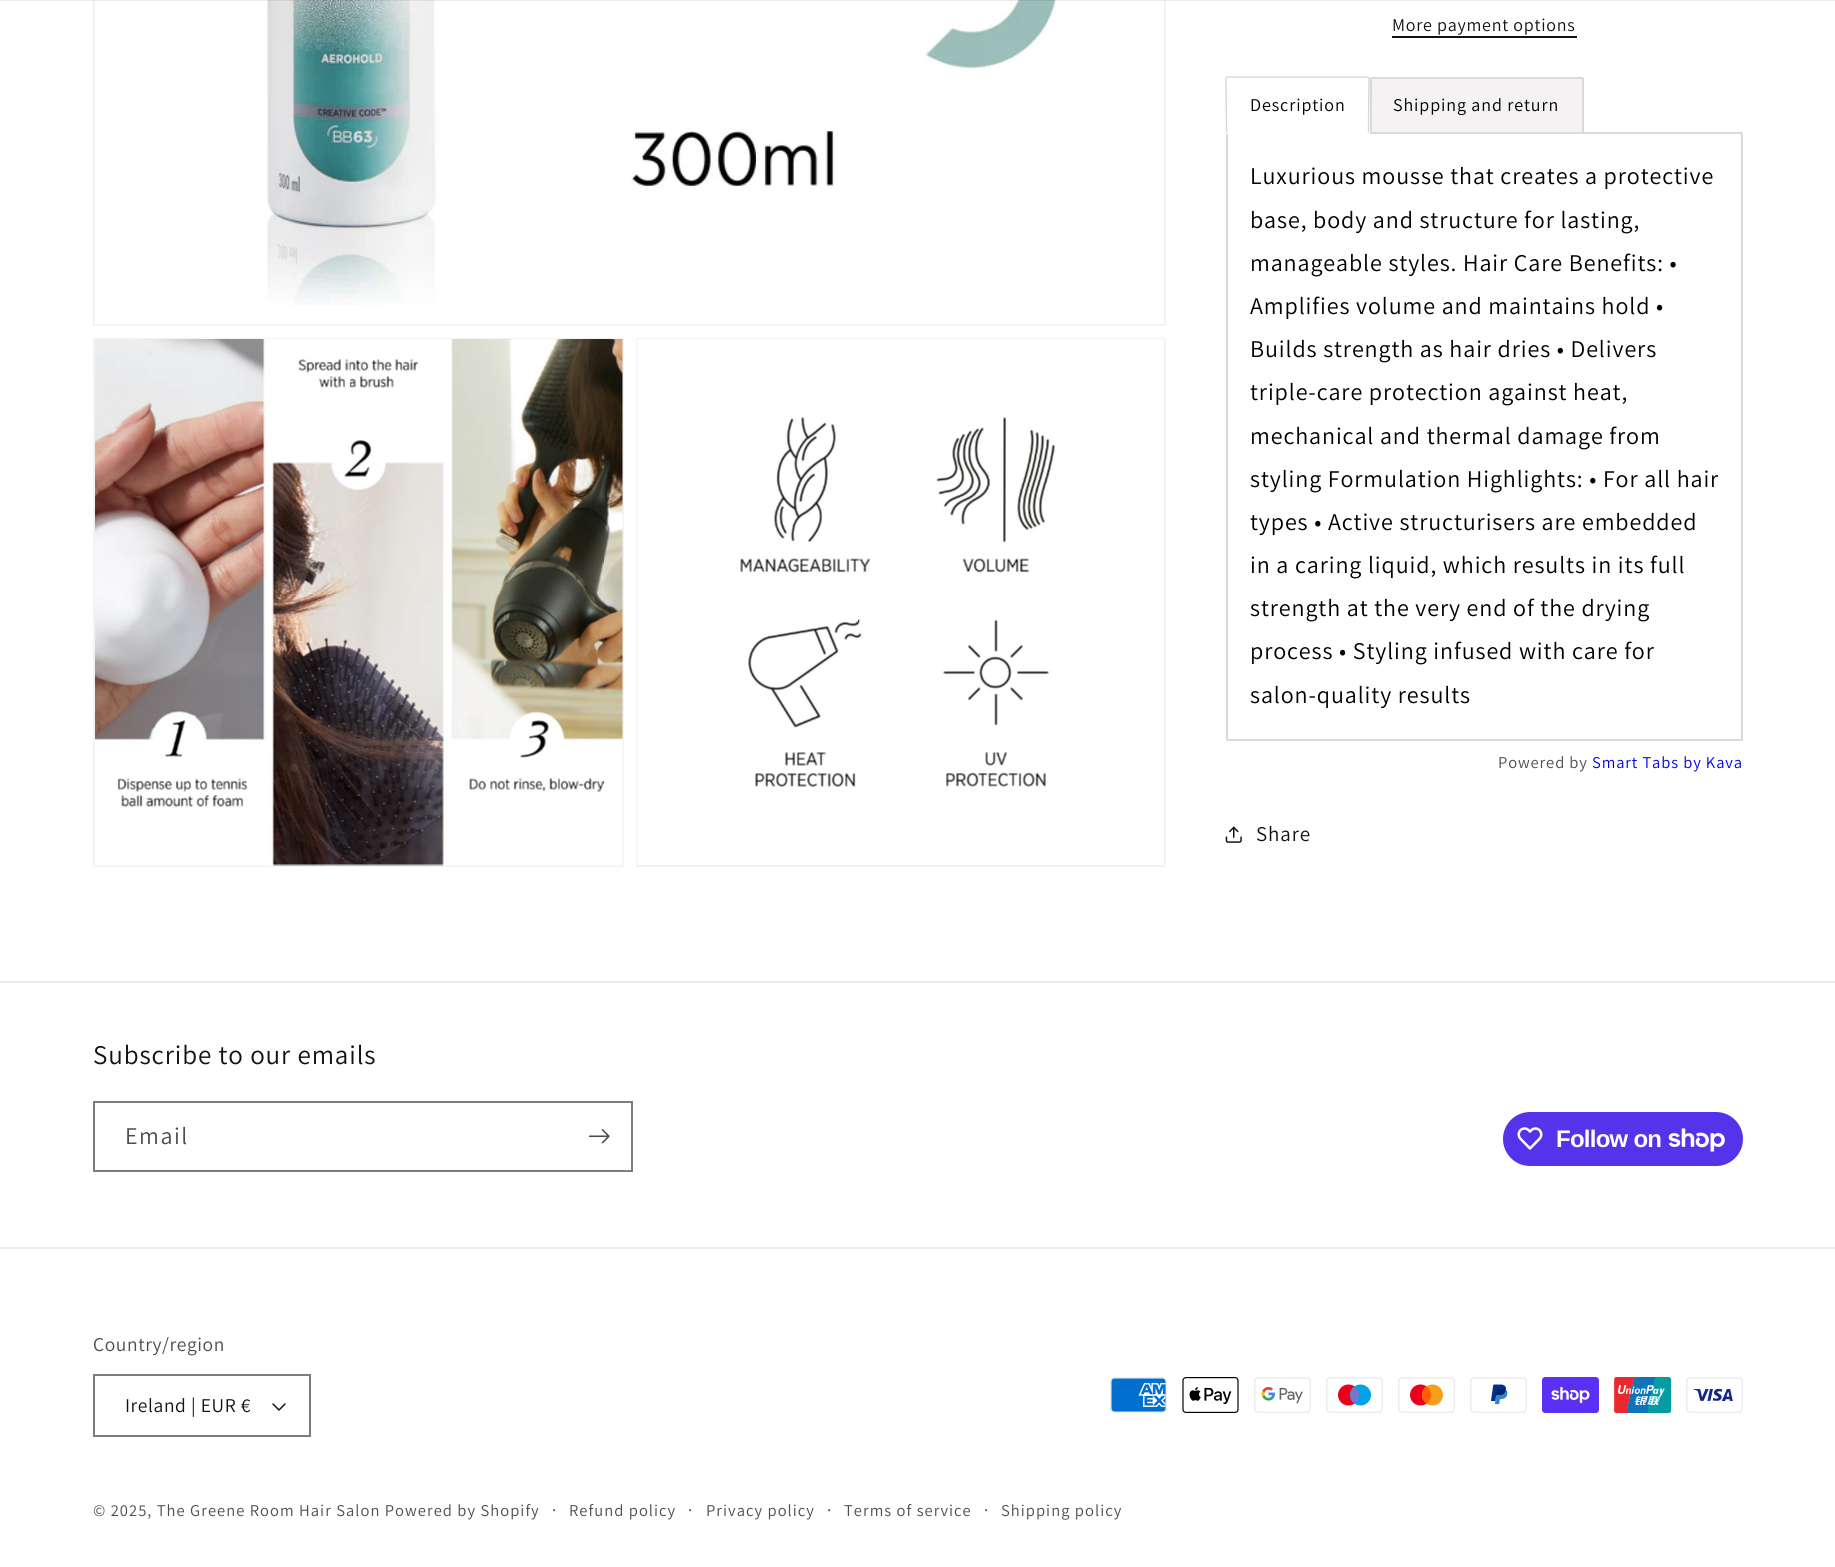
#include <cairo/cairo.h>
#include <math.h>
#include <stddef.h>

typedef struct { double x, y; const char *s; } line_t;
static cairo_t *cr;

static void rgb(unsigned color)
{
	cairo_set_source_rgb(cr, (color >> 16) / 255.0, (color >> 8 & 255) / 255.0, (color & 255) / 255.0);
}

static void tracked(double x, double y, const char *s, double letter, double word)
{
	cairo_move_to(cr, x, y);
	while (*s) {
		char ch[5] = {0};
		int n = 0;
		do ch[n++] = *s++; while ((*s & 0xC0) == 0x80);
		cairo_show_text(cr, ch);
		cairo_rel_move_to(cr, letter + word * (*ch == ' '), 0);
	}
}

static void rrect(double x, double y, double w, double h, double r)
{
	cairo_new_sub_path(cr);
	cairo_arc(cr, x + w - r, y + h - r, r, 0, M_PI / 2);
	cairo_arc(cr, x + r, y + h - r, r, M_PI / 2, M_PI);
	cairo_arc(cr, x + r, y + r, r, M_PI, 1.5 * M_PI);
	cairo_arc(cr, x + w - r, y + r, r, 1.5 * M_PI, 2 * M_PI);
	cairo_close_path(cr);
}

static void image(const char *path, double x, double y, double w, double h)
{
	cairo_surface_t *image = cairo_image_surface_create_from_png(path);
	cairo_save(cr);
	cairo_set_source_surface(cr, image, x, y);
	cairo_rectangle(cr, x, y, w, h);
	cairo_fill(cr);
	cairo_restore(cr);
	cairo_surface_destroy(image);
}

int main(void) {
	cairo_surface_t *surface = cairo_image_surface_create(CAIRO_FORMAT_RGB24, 1835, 1567);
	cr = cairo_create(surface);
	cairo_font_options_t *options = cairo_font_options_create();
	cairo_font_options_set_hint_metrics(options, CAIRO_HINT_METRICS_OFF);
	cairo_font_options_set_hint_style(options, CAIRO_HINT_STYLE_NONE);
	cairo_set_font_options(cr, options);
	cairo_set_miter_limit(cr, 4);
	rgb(0xffffff);
	cairo_paint(cr);
	cairo_rectangle(cr, 94, -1, 1071, 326);
	rgb(0xf3f3f3);
	cairo_stroke(cr);
	image("img/1.png", 267, 0, 790, 306);
	cairo_set_source_rgba(cr, 0.071, 0.071, 0.071, 0.08);
	cairo_rectangle(cr, 0, 0, 1835, 1);
	cairo_fill(cr);
	cairo_rectangle(cr, 94, 339, 529, 527);
	rgb(0xf3f3f3);
	cairo_stroke(cr);
	image("img/2.png", 95, 339, 528, 527);
	cairo_rectangle(cr, 637, 339, 528, 527);
	cairo_stroke(cr);
	image("img/3.png", 637, 339, 527, 525);
	rgb(0x121212);
	cairo_rectangle(cr, 1392, 36, 185, 2);
	cairo_fill(cr);
	rrect(1227, 133, 515, 607, 0.5);
	rgb(0xdbdada);
	cairo_stroke(cr);
	rgb(0xffffff);
	rrect(1226, 77, 144, 57, 1.5);
	cairo_fill(cr);
	cairo_new_path(cr);
	cairo_move_to(cr, 1226.5, 132.5);
	cairo_line_to(cr, 1226, 78);
	cairo_line_to(cr, 1227, 77);
	cairo_line_to(cr, 1368, 77);
	cairo_line_to(cr, 1369, 78);
	cairo_line_to(cr, 1368.5, 132.5);
	rgb(0xdbdada);
	cairo_set_line_width(cr, 1.5);
	cairo_stroke(cr);
	rgb(0xf4f2f2);
	rrect(1371, 78, 212, 55, 0.5);
	cairo_fill_preserve(cr);
	rgb(0xdbdada);
	cairo_set_line_width(cr, 2);
	cairo_stroke(cr);
	image("img/4.png", 1225, 826, 17, 17);
	rgb(0xececec);
	cairo_rectangle(cr, 0, 981, 1835, 2);
	cairo_fill(cr);
	cairo_rectangle(cr, 94, 1102, 538, 69);
	rgb(0x7d7d7d);
	cairo_stroke(cr);
	image("img/5.png", 588, 1129, 22, 15);
	rgb(0x5433eb);
	rrect(1503, 1112, 240, 54, 27);
	cairo_fill(cr);
	image("img/6.png", 1517, 1127, 26, 23);
	image("img/7.png", 1668, 1128, 57, 24);
	rgb(0xececec);
	cairo_rectangle(cr, 0, 1247, 1835, 2);
	cairo_fill(cr);
	image("img/8.png", 272, 1403, 14, 8);
	cairo_rectangle(cr, 94, 1375, 216, 61);
	rgb(0x7d7d7d);
	cairo_stroke(cr);
	image("img/9.png", 1110, 1377, 57, 36);
	image("img/10.png", 1182, 1377, 57, 36);
	image("img/11.png", 1254, 1377, 57, 36);
	image("img/12.png", 1326, 1377, 57, 36);
	image("img/13.png", 1398, 1377, 57, 36);
	image("img/14.png", 1470, 1377, 57, 36);
	image("img/15.png", 1542, 1377, 57, 36);
	image("img/16.png", 1614, 1377, 57, 36);
	image("img/17.png", 1686, 1377, 57, 36);
	cairo_select_font_face(cr, "Assistant", CAIRO_FONT_SLANT_NORMAL, CAIRO_FONT_WEIGHT_NORMAL);
	cairo_set_font_size(cr, 18);
	rgb(0x121212);
	tracked(1392, 31, "More payment options", 0.75, 0);
	rgb(0x000000);
	tracked(1250, 111, "Description", 0.9, 0);
	tracked(1393, 111, "Shipping and return", 0.9, 0);
	cairo_set_font_size(cr, 24);
	{
		static const line_t items[] = {
			{1250, 184, "Luxurious mousse that creates a protective"},
			{1250, 228, "base, body and structure for lasting,"},
			{1250, 271, "manageable styles. Hair Care Benefits: •"},
			{1250, 314, "Amplifies volume and maintains hold •"},
			{1250, 357, "Builds strength as hair dries • Delivers"},
			{1250, 400, "triple-care protection against heat,"},
			{1250, 444, "mechanical and thermal damage from"},
			{1250, 487, "styling Formulation Highlights: • For all hair"},
			{1250, 530, "types • Active structurisers are embedded"},
			{1250, 573, "in a caring liquid, which results in its full"},
			{1250, 616, "strength at the very end of the drying"},
			{1250, 659, "process • Styling infused with care for"},
			{1250, 703, "salon-quality results"},
		};
		for (size_t i = 0; i < sizeof items / sizeof *items; i++) {
			tracked(items[i].x, items[i].y, items[i].s, 0.9, 0);
		}
	}
	cairo_set_font_size(cr, 16.5);
	rgb(0x4d4d4d);
	tracked(1498, 768, "Powered by", 0.9, 0);
	rgb(0x0000ee);
	tracked(1592, 768, "Smart Tabs by Kava", 0.9, 0);
	cairo_set_font_size(cr, 21);
	rgb(0x121212);
	tracked(1256, 841, "Share", 0.9, 0);
	cairo_set_font_size(cr, 27);
	tracked(93, 1064, "Subscribe to our emails", 0.9, 0);
	cairo_set_font_size(cr, 24);
	rgb(0x4d4d4d);
	tracked(125, 1144, "Email", 1.5, 0);
	cairo_select_font_face(cr, "Liberation Sans", CAIRO_FONT_SLANT_NORMAL, CAIRO_FONT_WEIGHT_BOLD);
	rgb(0xffffff);
	tracked(1556, 1147, "Follow on", -0.75, 0);
	cairo_select_font_face(cr, "Assistant", CAIRO_FONT_SLANT_NORMAL, CAIRO_FONT_WEIGHT_NORMAL);
	cairo_set_font_size(cr, 19.5);
	rgb(0x4d4d4d);
	tracked(93, 1351, "Country/region", 0.6, 0);
	rgb(0x121212);
	tracked(125, 1412, "Ireland | EUR €", 0.6, 0);
	cairo_set_font_size(cr, 16.5);
	rgb(0x4d4d4d);
	tracked(93, 1516, "© 2025, The Greene Room Hair Salon Powered by Shopify", 1.05, 0);
	cairo_set_font_size(cr, 18);
	tracked(552, 1516, "·", 1.05, 0);
	cairo_set_font_size(cr, 16.5);
	tracked(569, 1516, "Refund policy", 1.05, 0);
	cairo_set_font_size(cr, 18);
	tracked(688, 1516, "·", 1.05, 0);
	cairo_set_font_size(cr, 16.5);
	tracked(706, 1516, "Privacy policy", 1.05, 0);
	cairo_set_font_size(cr, 18);
	tracked(827, 1516, "·", 1.05, 0);
	cairo_set_font_size(cr, 16.5);
	tracked(844, 1516, "Terms of service", 1.05, 0);
	cairo_set_font_size(cr, 18);
	tracked(984, 1516, "·", 1.05, 0);
	cairo_set_font_size(cr, 16.5);
	tracked(1001, 1516, "Shipping policy", 1.05, 0);
	cairo_surface_write_to_png(surface, "page.png");
	cairo_font_options_destroy(options);
	cairo_destroy(cr);
	cairo_surface_destroy(surface);
	return 0;
}
